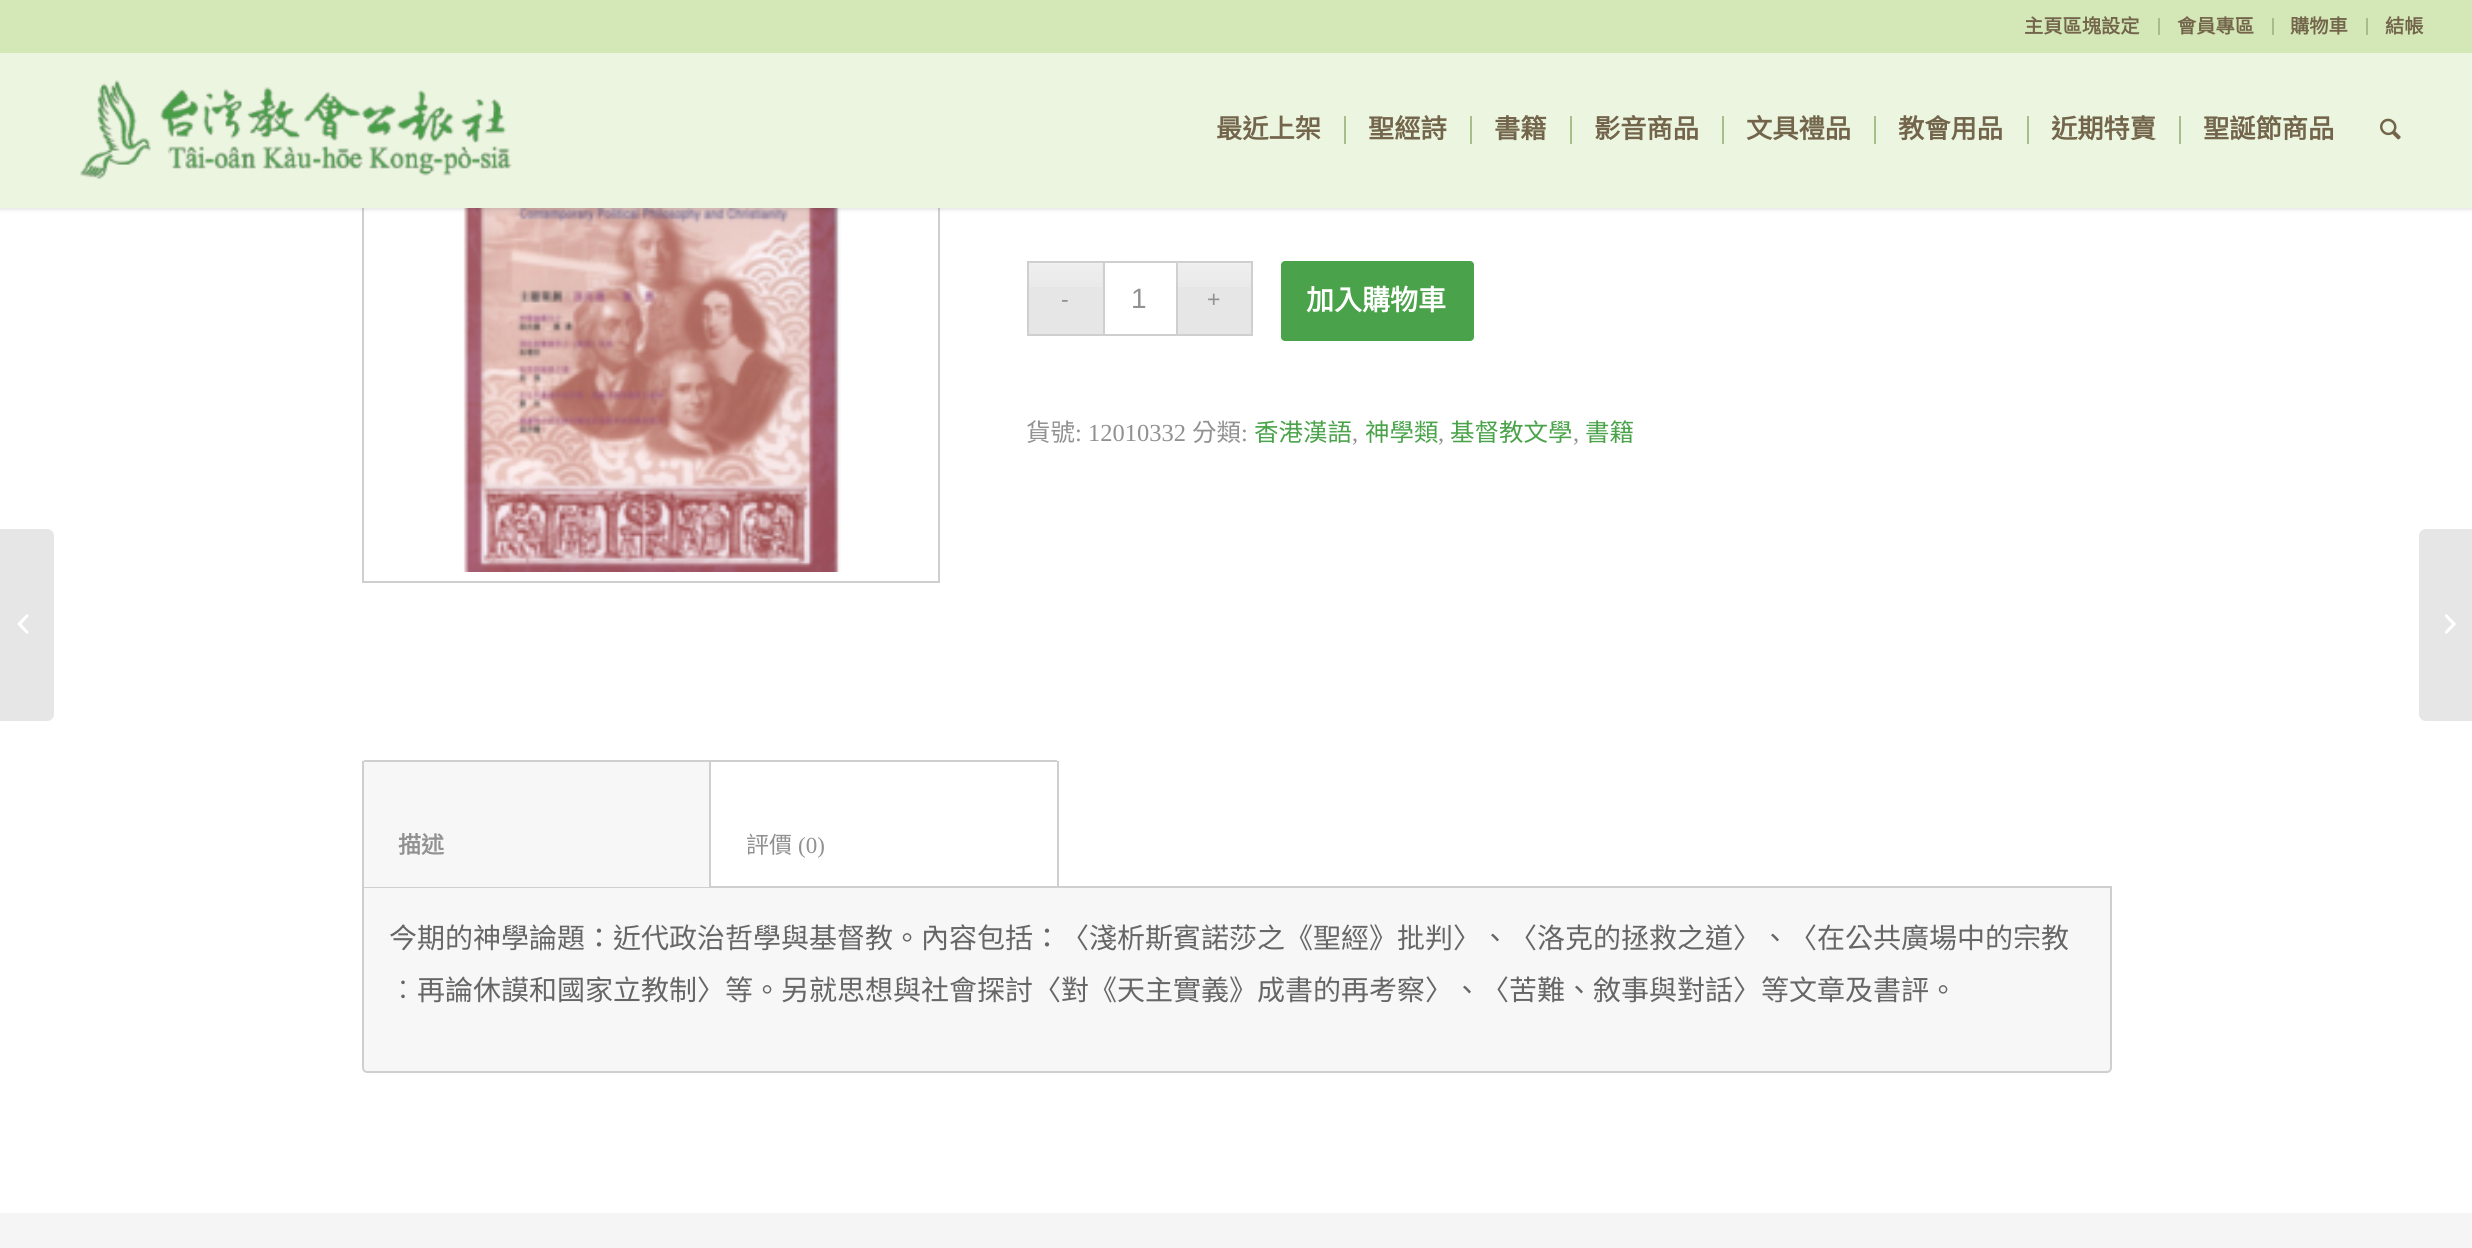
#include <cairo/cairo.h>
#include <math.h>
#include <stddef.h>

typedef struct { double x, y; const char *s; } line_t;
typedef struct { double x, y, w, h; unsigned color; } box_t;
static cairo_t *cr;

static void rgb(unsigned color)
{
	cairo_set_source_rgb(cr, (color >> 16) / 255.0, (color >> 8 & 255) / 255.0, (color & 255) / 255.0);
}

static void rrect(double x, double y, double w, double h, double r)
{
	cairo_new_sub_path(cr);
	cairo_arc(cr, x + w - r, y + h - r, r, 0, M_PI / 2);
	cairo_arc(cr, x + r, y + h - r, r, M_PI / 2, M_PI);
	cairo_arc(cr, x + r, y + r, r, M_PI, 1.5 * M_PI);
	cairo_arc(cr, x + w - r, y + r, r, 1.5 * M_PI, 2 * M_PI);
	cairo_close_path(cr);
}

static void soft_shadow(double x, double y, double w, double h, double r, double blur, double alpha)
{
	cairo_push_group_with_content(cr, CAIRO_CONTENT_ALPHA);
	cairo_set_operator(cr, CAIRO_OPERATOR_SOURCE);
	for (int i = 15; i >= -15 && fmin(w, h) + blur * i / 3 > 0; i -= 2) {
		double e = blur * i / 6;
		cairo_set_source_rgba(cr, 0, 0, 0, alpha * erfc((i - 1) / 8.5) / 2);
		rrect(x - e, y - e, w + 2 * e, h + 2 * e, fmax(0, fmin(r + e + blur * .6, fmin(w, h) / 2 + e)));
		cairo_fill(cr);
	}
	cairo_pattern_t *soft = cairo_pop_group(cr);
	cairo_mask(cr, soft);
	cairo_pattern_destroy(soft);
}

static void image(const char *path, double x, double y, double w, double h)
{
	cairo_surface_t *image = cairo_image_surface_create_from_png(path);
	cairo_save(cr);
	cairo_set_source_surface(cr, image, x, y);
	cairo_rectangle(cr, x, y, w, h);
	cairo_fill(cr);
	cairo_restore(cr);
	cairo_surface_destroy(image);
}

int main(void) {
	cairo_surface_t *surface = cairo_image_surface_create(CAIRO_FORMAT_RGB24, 2472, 1248);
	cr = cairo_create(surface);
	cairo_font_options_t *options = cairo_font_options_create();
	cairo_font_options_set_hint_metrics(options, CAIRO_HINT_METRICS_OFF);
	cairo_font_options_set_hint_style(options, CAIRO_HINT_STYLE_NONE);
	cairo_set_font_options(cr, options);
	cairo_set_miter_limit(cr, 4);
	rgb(0xf5f5f5);
	cairo_paint(cr);
	rgb(0xffffff);
	cairo_rectangle(cr, 0, 208, 2472, 1005);
	cairo_fill(cr);
	rgb(0xe6e6e6);
	cairo_new_path(cr);
	cairo_move_to(cr, 0, 529);
	cairo_line_to(cr, 47, 529);
	cairo_curve_to(cr, 51, 529, 54, 532, 54, 536);
	cairo_line_to(cr, 54, 714);
	cairo_curve_to(cr, 54, 718, 51, 721, 47, 721);
	cairo_line_to(cr, 0, 721);
	cairo_close_path(cr);
	cairo_fill(cr);
	image("img/1.png", 17, 614, 12, 20);
	cairo_rectangle(cr, 363, 6, 576, 576);
	rgb(0xcfcfcf);
	cairo_stroke(cr);
	image("img/4.png", 463, 208, 378, 364);
	rgb(0x000000);
	soft_shadow(-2, -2, 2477, 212, 0, 2, 0.1);
	{
		static const box_t items[] = {
			{0, 0, 2472, 53, 0xd4e8b7},
			{2158, 18, 2, 17, 0xa8bd8a},
			{2272, 18, 2, 17, 0xa8bd8a},
			{2366, 18, 2, 17, 0xa8bd8a},
			{0, 53, 2472, 155, 0xebf5df},
		};
		for (size_t i = 0; i < sizeof items / sizeof *items; i++) {
			rgb(items[i].color);
			cairo_rectangle(cr, items[i].x, items[i].y, items[i].w, items[i].h);
			cairo_fill(cr);
		}
	}
	image("img/2.png", 80, 80, 432, 99);
	{
		static const box_t items[] = {
			{1344, 116, 2, 28, 0xa8bd8a},
			{1470, 116, 2, 28, 0xa8bd8a},
			{1570, 116, 2, 28, 0xa8bd8a},
			{1722, 116, 2, 28, 0xa8bd8a},
			{1874, 116, 2, 28, 0xa8bd8a},
			{2027, 116, 2, 28, 0xa8bd8a},
			{2179, 116, 2, 28, 0xa8bd8a},
		};
		for (size_t i = 0; i < sizeof items / sizeof *items; i++) {
			rgb(items[i].color);
			cairo_rectangle(cr, items[i].x, items[i].y, items[i].w, items[i].h);
			cairo_fill(cr);
		}
	}
	image("img/3.png", 2380, 118, 21, 22);
	rgb(0xe6e6e6);
	cairo_rectangle(cr, 1029, 263, 74, 71);
	cairo_fill(cr);
	image("img/5.png", 1029, 263, 74, 24);
	cairo_rectangle(cr, 1104, 262, 73, 73);
	rgb(0xcfcfcf);
	cairo_stroke(cr);
	rgb(0xe6e6e6);
	cairo_rectangle(cr, 1178, 263, 73, 71);
	cairo_fill(cr);
	image("img/6.png", 1177, 262, 74, 25);
	{
		static const box_t items[] = {
			{1027, 261, 76, 2, 0xcfcfcf},
			{1027, 334, 76, 2, 0xcfcfcf},
			{1027, 261, 2, 75, 0xcfcfcf},
			{1178, 261, 75, 2, 0xcfcfcf},
			{1251, 261, 2, 75, 0xcfcfcf},
			{1178, 334, 75, 2, 0xcfcfcf},
		};
		for (size_t i = 0; i < sizeof items / sizeof *items; i++) {
			rgb(items[i].color);
			cairo_rectangle(cr, items[i].x, items[i].y, items[i].w, items[i].h);
			cairo_fill(cr);
		}
	}
	rgb(0x4aa34a);
	rrect(1281, 261, 193, 80, 4);
	cairo_fill(cr);
	rgb(0xf7f7f7);
	cairo_new_path(cr);
	cairo_move_to(cr, 363, 887);
	cairo_line_to(cr, 2111, 887);
	cairo_line_to(cr, 2111, 1068);
	cairo_curve_to(cr, 2111, 1070, 2109, 1072, 2107, 1072);
	cairo_line_to(cr, 367, 1072);
	cairo_curve_to(cr, 365, 1072, 363, 1070, 363, 1068);
	cairo_close_path(cr);
	cairo_fill_preserve(cr);
	rgb(0xcfcfcf);
	cairo_stroke(cr);
	{
		static const box_t items[] = {
			{362, 760, 347, 127, 0xf7f7f7},
			{709, 760, 348, 2, 0xcfcfcf},
			{364, 760, 347, 2, 0xcfcfcf},
			{709, 760, 2, 127, 0xcfcfcf},
			{362, 761, 2, 126, 0xcfcfcf},
			{1057, 761, 2, 126, 0xcfcfcf},
		};
		for (size_t i = 0; i < sizeof items / sizeof *items; i++) {
			rgb(items[i].color);
			cairo_rectangle(cr, items[i].x, items[i].y, items[i].w, items[i].h);
			cairo_fill(cr);
		}
	}
	rgb(0xe6e6e6);
	cairo_new_path(cr);
	cairo_move_to(cr, 2426, 529);
	cairo_line_to(cr, 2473, 529);
	cairo_line_to(cr, 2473, 721);
	cairo_line_to(cr, 2426, 721);
	cairo_curve_to(cr, 2422, 721, 2419, 718, 2419, 714);
	cairo_line_to(cr, 2419, 536);
	cairo_curve_to(cr, 2419, 532, 2422, 529, 2426, 529);
	cairo_close_path(cr);
	cairo_fill(cr);
	image("img/7.png", 2445, 614, 11, 20);
	cairo_select_font_face(cr, "Noto Sans CJK TC", CAIRO_FONT_SLANT_NORMAL, CAIRO_FONT_WEIGHT_BOLD);
	cairo_set_font_size(cr, 19.25);
	rgb(0x73654b);
	{
		static const line_t items[] = {
			{2024, 33, "主頁區塊設定"},
			{2177, 33, "會員專區"},
			{2290, 33, "購物車"},
			{2385, 33, "結帳"},
		};
		for (size_t i = 0; i < sizeof items / sizeof *items; i++) {
			cairo_move_to(cr, items[i].x, items[i].y);
			cairo_show_text(cr, items[i].s);
		}
	}
	cairo_set_font_size(cr, 26.25);
	{
		static const line_t items[] = {
			{1216, 138, "最近上架"},
			{1368, 138, "聖經詩"},
			{1494, 138, "書籍"},
			{1594, 138, "影音商品"},
			{1746, 138, "文具禮品"},
			{1898, 138, "教會用品"},
			{2051, 138, "近期特賣"},
			{2203, 138, "聖誕節商品"},
		};
		for (size_t i = 0; i < sizeof items / sizeof *items; i++) {
			cairo_move_to(cr, items[i].x, items[i].y);
			cairo_show_text(cr, items[i].s);
		}
	}
	cairo_select_font_face(cr, "Liberation Sans", CAIRO_FONT_SLANT_NORMAL, CAIRO_FONT_WEIGHT_NORMAL);
	cairo_set_font_size(cr, 23);
	rgb(0x919191);
	cairo_move_to(cr, 1061, 307);
	cairo_show_text(cr, "-");
	cairo_set_font_size(cr, 28);
	cairo_move_to(cr, 1131, 308);
	cairo_show_text(cr, "1");
	cairo_set_font_size(cr, 23);
	cairo_move_to(cr, 1207, 307);
	cairo_show_text(cr, "+");
	cairo_select_font_face(cr, "Noto Sans CJK TC", CAIRO_FONT_SLANT_NORMAL, CAIRO_FONT_WEIGHT_BOLD);
	cairo_set_font_size(cr, 28);
	rgb(0xffffff);
	cairo_move_to(cr, 1306, 310);
	cairo_show_text(cr, "加入購物車");
	cairo_select_font_face(cr, "Noto Sans CJK TC", CAIRO_FONT_SLANT_NORMAL, CAIRO_FONT_WEIGHT_NORMAL);
	cairo_set_font_size(cr, 24.5);
	rgb(0x919191);
	cairo_move_to(cr, 1026, 441);
	cairo_show_text(cr, "貨號");
	cairo_select_font_face(cr, "Liberation Serif", CAIRO_FONT_SLANT_NORMAL, CAIRO_FONT_WEIGHT_NORMAL);
	cairo_move_to(cr, 1075, 441);
	cairo_show_text(cr, ": 12010332");
	cairo_select_font_face(cr, "Noto Sans CJK TC", CAIRO_FONT_SLANT_NORMAL, CAIRO_FONT_WEIGHT_NORMAL);
	cairo_move_to(cr, 1192, 441);
	cairo_show_text(cr, "分類");
	cairo_select_font_face(cr, "Liberation Serif", CAIRO_FONT_SLANT_NORMAL, CAIRO_FONT_WEIGHT_NORMAL);
	cairo_move_to(cr, 1241, 441);
	cairo_show_text(cr, ":");
	cairo_select_font_face(cr, "Noto Sans CJK TC", CAIRO_FONT_SLANT_NORMAL, CAIRO_FONT_WEIGHT_NORMAL);
	rgb(0x4aa34a);
	cairo_move_to(cr, 1254, 441);
	cairo_show_text(cr, "香港漢語");
	cairo_select_font_face(cr, "Liberation Serif", CAIRO_FONT_SLANT_NORMAL, CAIRO_FONT_WEIGHT_NORMAL);
	rgb(0x919191);
	cairo_move_to(cr, 1352, 441);
	cairo_show_text(cr, ",");
	cairo_select_font_face(cr, "Noto Sans CJK TC", CAIRO_FONT_SLANT_NORMAL, CAIRO_FONT_WEIGHT_NORMAL);
	rgb(0x4aa34a);
	cairo_move_to(cr, 1365, 441);
	cairo_show_text(cr, "神學類");
	cairo_select_font_face(cr, "Liberation Serif", CAIRO_FONT_SLANT_NORMAL, CAIRO_FONT_WEIGHT_NORMAL);
	rgb(0x919191);
	cairo_move_to(cr, 1438, 441);
	cairo_show_text(cr, ",");
	cairo_select_font_face(cr, "Noto Sans CJK TC", CAIRO_FONT_SLANT_NORMAL, CAIRO_FONT_WEIGHT_NORMAL);
	rgb(0x4aa34a);
	cairo_move_to(cr, 1450, 441);
	cairo_show_text(cr, "基督教文學");
	cairo_select_font_face(cr, "Liberation Serif", CAIRO_FONT_SLANT_NORMAL, CAIRO_FONT_WEIGHT_NORMAL);
	rgb(0x919191);
	cairo_move_to(cr, 1573, 441);
	cairo_show_text(cr, ",");
	cairo_select_font_face(cr, "Noto Sans CJK TC", CAIRO_FONT_SLANT_NORMAL, CAIRO_FONT_WEIGHT_NORMAL);
	rgb(0x4aa34a);
	cairo_move_to(cr, 1585, 441);
	cairo_show_text(cr, "書籍");
	cairo_select_font_face(cr, "Noto Sans CJK TC", CAIRO_FONT_SLANT_NORMAL, CAIRO_FONT_WEIGHT_BOLD);
	cairo_set_font_size(cr, 23);
	rgb(0x919191);
	cairo_move_to(cr, 398, 853);
	cairo_show_text(cr, "描述");
	cairo_select_font_face(cr, "Noto Sans CJK TC", CAIRO_FONT_SLANT_NORMAL, CAIRO_FONT_WEIGHT_NORMAL);
	cairo_move_to(cr, 746, 853);
	cairo_show_text(cr, "評價");
	cairo_select_font_face(cr, "Liberation Serif", CAIRO_FONT_SLANT_NORMAL, CAIRO_FONT_WEIGHT_NORMAL);
	cairo_move_to(cr, 798, 853);
	cairo_show_text(cr, "(0)");
	cairo_select_font_face(cr, "Noto Sans CJK TC", CAIRO_FONT_SLANT_NORMAL, CAIRO_FONT_WEIGHT_NORMAL);
	cairo_set_font_size(cr, 28);
	rgb(0x666666);
	cairo_move_to(cr, 389, 948);
	cairo_show_text(cr, "今期的神學論題：近代政治哲學與基督教。內容包括：〈淺析斯賓諾莎之《聖經》批判〉、〈洛克的拯救之道〉、〈在公共廣場中的宗教");
	cairo_move_to(cr, 389, 1000);
	cairo_show_text(cr, "︰再論休謨和國家立教制〉等。另就思想與社會探討〈對《天主實義》成書的再考察〉、〈苦難、敘事與對話〉等文章及書評。");
	cairo_surface_write_to_png(surface, "page.png");
	cairo_font_options_destroy(options);
	cairo_destroy(cr);
	cairo_surface_destroy(surface);
	return 0;
}
